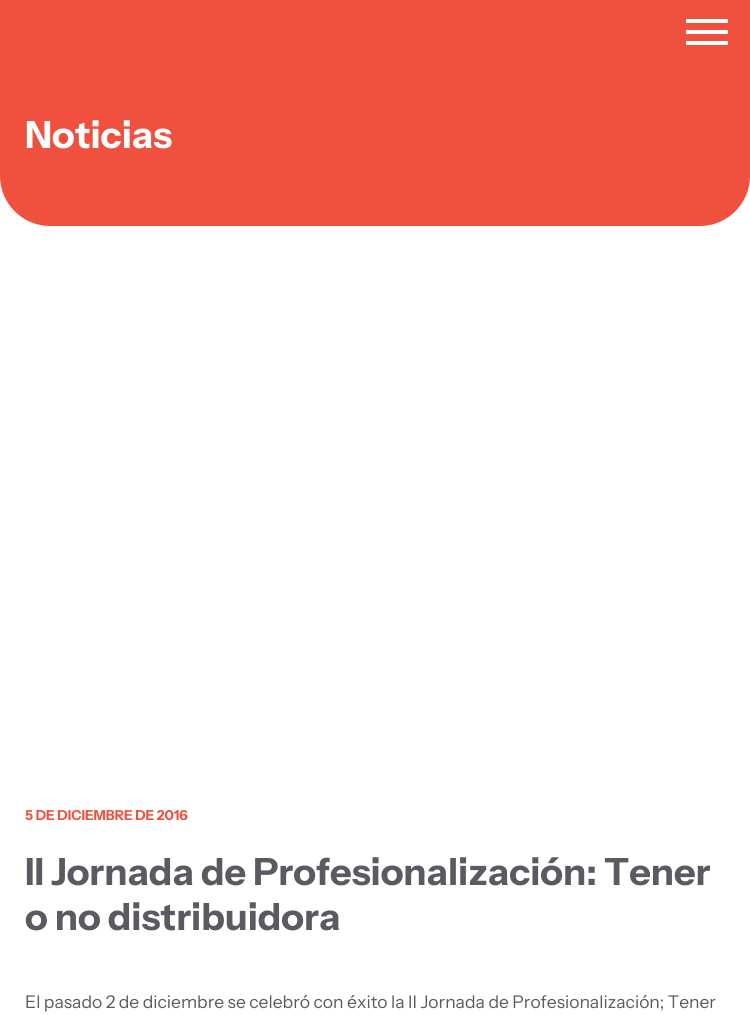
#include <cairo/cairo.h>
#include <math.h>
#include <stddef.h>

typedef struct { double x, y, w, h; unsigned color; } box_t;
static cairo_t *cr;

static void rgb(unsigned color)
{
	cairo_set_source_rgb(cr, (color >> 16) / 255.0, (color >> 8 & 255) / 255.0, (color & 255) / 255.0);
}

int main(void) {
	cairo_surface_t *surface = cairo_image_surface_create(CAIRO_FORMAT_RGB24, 750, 1015);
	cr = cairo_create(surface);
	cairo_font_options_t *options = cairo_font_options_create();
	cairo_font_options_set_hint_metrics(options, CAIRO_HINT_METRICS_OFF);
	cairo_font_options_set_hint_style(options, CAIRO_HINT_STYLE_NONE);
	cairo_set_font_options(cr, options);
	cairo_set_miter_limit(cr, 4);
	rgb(0xffffff);
	cairo_paint(cr);
	rgb(0xf0513e);
	cairo_new_path(cr);
	cairo_move_to(cr, 0, 0);
	cairo_line_to(cr, 750, 0);
	cairo_line_to(cr, 750, 176);
	cairo_curve_to(cr, 750, 203.5, 727.5, 226, 700, 226);
	cairo_line_to(cr, 50, 226);
	cairo_curve_to(cr, 22.5, 226, 0, 203.5, 0, 176);
	cairo_close_path(cr);
	cairo_fill(cr);
	{
		static const box_t items[] = {
			{686, 19, 42, 4, 0xffffff},
			{686, 30, 42, 4, 0xffffff},
			{686, 41, 42, 4, 0xffffff},
		};
		for (size_t i = 0; i < sizeof items / sizeof *items; i++) {
			rgb(items[i].color);
			cairo_rectangle(cr, items[i].x, items[i].y, items[i].w, items[i].h);
			cairo_fill(cr);
		}
	}
	cairo_select_font_face(cr, "Instrument Sans", CAIRO_FONT_SLANT_NORMAL, CAIRO_FONT_WEIGHT_BOLD);
	cairo_set_font_size(cr, 37.5);
	cairo_move_to(cr, 25, 148);
	cairo_show_text(cr, "Noticias");
	cairo_set_font_size(cr, 13.75);
	rgb(0xf0513e);
	cairo_move_to(cr, 25, 820);
	cairo_show_text(cr, "5 DE DICIEMBRE DE 2016");
	cairo_set_font_size(cr, 37.5);
	rgb(0x595b60);
	cairo_move_to(cr, 25, 885);
	cairo_show_text(cr, "II Jornada de Profesionalización: Tener");
	cairo_move_to(cr, 25, 930);
	cairo_show_text(cr, "o no distribuidora");
	cairo_select_font_face(cr, "Instrument Sans", CAIRO_FONT_SLANT_NORMAL, CAIRO_FONT_WEIGHT_NORMAL);
	cairo_set_font_size(cr, 17.5);
	cairo_move_to(cr, 25, 1008);
	cairo_show_text(cr, "El pasado 2 de diciembre se celebró con éxito la II Jornada de Profesionalización; Tener");
	cairo_surface_write_to_png(surface, "page.png");
	cairo_font_options_destroy(options);
	cairo_destroy(cr);
	cairo_surface_destroy(surface);
	return 0;
}
